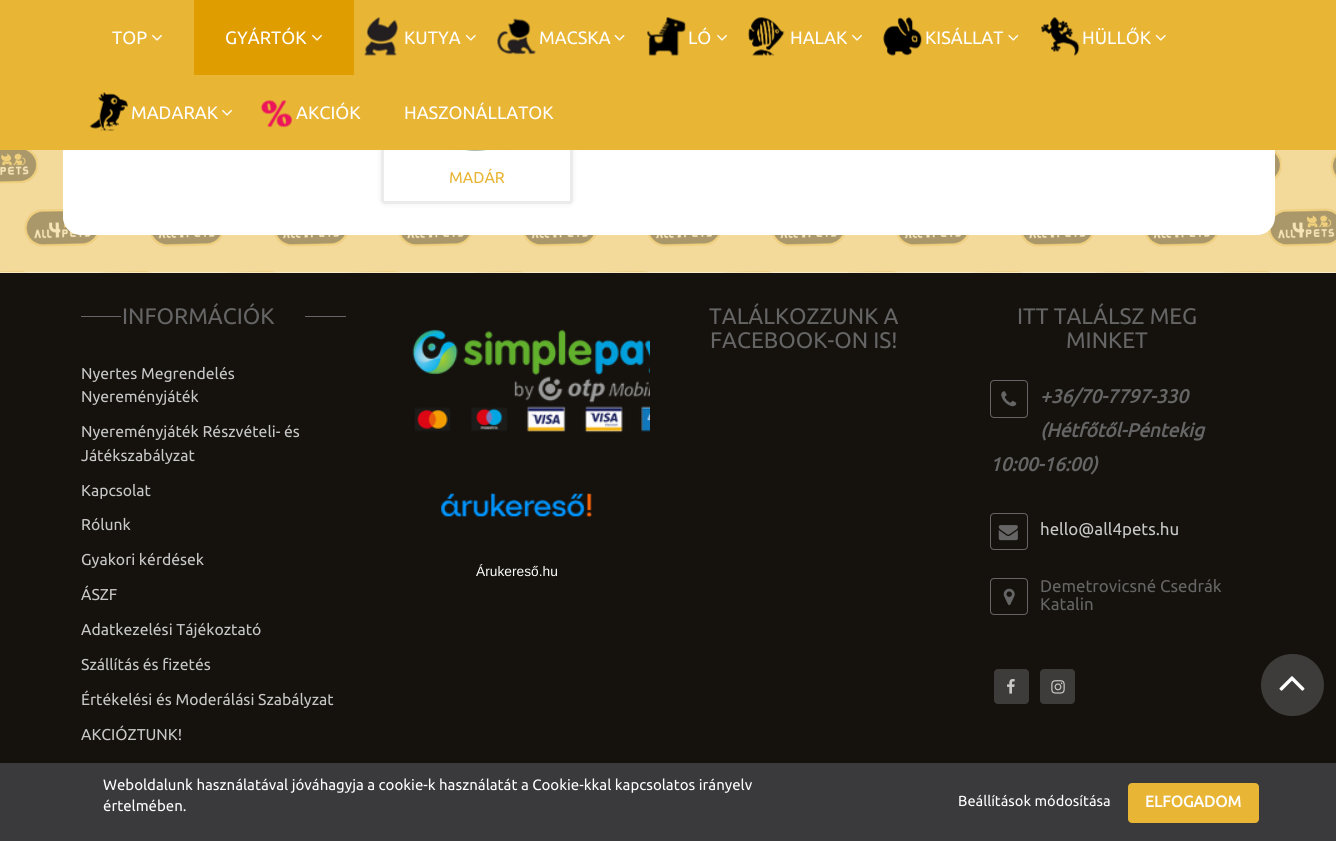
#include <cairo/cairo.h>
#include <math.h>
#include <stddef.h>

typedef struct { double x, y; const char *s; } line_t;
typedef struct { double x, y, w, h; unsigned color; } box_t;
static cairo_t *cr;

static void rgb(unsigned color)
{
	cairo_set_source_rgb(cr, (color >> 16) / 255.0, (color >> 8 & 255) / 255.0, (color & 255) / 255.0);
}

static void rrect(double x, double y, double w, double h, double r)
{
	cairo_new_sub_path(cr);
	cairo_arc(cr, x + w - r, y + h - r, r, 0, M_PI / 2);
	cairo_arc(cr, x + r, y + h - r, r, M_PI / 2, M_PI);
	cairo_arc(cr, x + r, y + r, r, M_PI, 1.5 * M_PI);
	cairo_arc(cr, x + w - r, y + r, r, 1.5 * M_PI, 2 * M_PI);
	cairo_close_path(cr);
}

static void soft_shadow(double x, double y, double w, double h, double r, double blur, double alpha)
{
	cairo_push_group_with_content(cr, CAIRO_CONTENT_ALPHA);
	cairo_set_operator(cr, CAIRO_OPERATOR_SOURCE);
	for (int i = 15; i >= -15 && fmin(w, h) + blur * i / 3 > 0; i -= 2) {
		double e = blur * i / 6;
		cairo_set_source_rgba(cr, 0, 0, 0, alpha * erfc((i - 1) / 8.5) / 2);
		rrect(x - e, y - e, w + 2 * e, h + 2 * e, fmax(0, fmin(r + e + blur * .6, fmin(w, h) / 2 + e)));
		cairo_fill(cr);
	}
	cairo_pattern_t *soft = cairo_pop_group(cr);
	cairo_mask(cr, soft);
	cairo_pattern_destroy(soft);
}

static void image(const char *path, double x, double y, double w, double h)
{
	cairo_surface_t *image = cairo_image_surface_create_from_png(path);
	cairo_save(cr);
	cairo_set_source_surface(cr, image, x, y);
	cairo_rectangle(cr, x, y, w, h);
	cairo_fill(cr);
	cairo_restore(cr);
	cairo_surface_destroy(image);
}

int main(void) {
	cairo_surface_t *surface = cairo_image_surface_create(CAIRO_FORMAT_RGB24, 1336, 841);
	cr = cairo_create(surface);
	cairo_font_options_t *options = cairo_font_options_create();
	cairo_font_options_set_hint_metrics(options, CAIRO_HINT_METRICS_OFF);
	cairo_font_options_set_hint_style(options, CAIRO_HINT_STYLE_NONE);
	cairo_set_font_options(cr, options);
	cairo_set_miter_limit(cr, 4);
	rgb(0xffffff);
	cairo_paint(cr);
	image("img/14.png", 0, 150, 1336, 123);
	rgb(0xffffff);
	rrect(63, -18, 1212, 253, 18);
	cairo_fill(cr);
	rgb(0x000000);
	soft_shadow(380, -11, 194, 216, 5, 2, 0.05);
	rgb(0xffffff);
	rrect(382.5, -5.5, 189, 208, 2.5);
	cairo_fill_preserve(cr);
	rgb(0xebebeb);
	cairo_set_line_width(cr, 3);
	cairo_stroke(cr);
	rgb(0xe8b535);
	cairo_rectangle(cr, 0, 0, 1336, 150);
	cairo_fill(cr);
	image("img/1.png", 152, 34, 10, 7);
	rgb(0xe09d00);
	cairo_rectangle(cr, 194, 0, 160, 75);
	cairo_fill(cr);
	image("img/2.png", 312, 34, 10, 7);
	image("img/3.png", 364, 17, 34, 39);
	image("img/4.png", 465, 34, 11, 7);
	image("img/5.png", 497, 18, 39, 37);
	image("img/6.png", 614, 34, 11, 7);
	image("img/7.png", 647, 17, 39, 39);
	image("img/1.png", 717, 34, 10, 7);
	image("img/8.png", 748, 17, 37, 39);
	image("img/1.png", 852, 34, 10, 7);
	image("img/9.png", 883, 17, 39, 39);
	image("img/10.png", 1008, 34, 11, 7);
	image("img/11.png", 1041, 17, 39, 39);
	image("img/4.png", 1155, 34, 11, 7);
	image("img/12.png", 89, 92, 39, 39);
	image("img/1.png", 222, 109, 10, 7);
	image("img/13.png", 260, 100, 32, 28);
	image("img/15.png", 438, 150, 76, 1);
	{
		static const box_t items[] = {
			{0, 273, 1336, 490, 0x15120e},
			{81, 316, 265, 1, 0x656565},
			{121, 316, 184, 1, 0x15120e},
		};
		for (size_t i = 0; i < sizeof items / sizeof *items; i++) {
			rgb(items[i].color);
			cairo_rectangle(cr, items[i].x, items[i].y, items[i].w, items[i].h);
			cairo_fill(cr);
		}
	}
	image("img/16.png", 412, 329, 238, 104);
	image("img/17.png", 441, 493, 151, 24);
	rrect(990.5, 380.5, 37, 37, 3.5);
	rgb(0x656565);
	cairo_set_line_width(cr, 1);
	cairo_stroke(cr);
	image("img/18.png", 1001, 391, 16, 16);
	rrect(990.5, 513.5, 37, 36, 3.5);
	cairo_stroke(cr);
	image("img/19.png", 998, 525, 20, 16);
	rrect(990.5, 578.5, 37, 36, 3.5);
	cairo_stroke(cr);
	image("img/20.png", 1003, 588, 12, 17);
	rgb(0x3d3c3a);
	rrect(994, 669, 35, 35, 4);
	cairo_fill(cr);
	image("img/21.png", 1007, 679, 8, 15);
	rrect(1040, 669, 35, 35, 4);
	cairo_fill(cr);
	image("img/22.png", 1051, 680, 14, 14);
	rrect(1261, 654, 63, 62, 31);
	cairo_fill(cr);
	image("img/23.png", 1279, 676, 26, 15);
	rgb(0x3a393b);
	cairo_rectangle(cr, 0, 763, 1336, 78);
	cairo_fill(cr);
	rgb(0xe8b535);
	rrect(1129.5, 784.5, 128, 37, 2.5);
	cairo_fill_preserve(cr);
	cairo_set_line_width(cr, 3);
	cairo_stroke(cr);
	cairo_select_font_face(cr, "Ubuntu", CAIRO_FONT_SLANT_NORMAL, CAIRO_FONT_WEIGHT_NORMAL);
	cairo_set_font_size(cr, 18);
	rgb(0xffffff);
	{
		static const line_t items[] = {
			{112, 44, "TOP"},
			{225, 44, "GYÁRTÓK"},
			{404, 44, "KUTYA"},
			{539, 44, "MACSKA"},
			{688, 44, "LÓ"},
			{790, 44, "HALAK"},
			{925, 44, "KISÁLLAT"},
			{1082, 44, "HÜLLŐK"},
			{131, 119, "MADARAK"},
			{296, 119, "AKCIÓK"},
			{404, 119, "HASZONÁLLATOK"},
		};
		for (size_t i = 0; i < sizeof items / sizeof *items; i++) {
			cairo_move_to(cr, items[i].x, items[i].y);
			cairo_show_text(cr, items[i].s);
		}
	}
	cairo_set_font_size(cr, 15.75);
	rgb(0xe8b535);
	cairo_move_to(cr, 449, 183);
	cairo_show_text(cr, "MADÁR");
	cairo_set_font_size(cr, 22.5);
	rgb(0x656565);
	cairo_move_to(cr, 122, 324);
	cairo_show_text(cr, "INFORMÁCIÓK");
	cairo_set_font_size(cr, 15.75);
	rgb(0xc8c8c8);
	{
		static const line_t items[] = {
			{81, 379, "Nyertes Megrendelés"},
			{81, 402, "Nyereményjáték"},
			{81, 437, "Nyereményjáték Részvételi- és"},
			{81, 461, "Játékszabályzat"},
			{81, 496, "Kapcsolat"},
			{81, 530, "Rólunk"},
			{81, 565, "Gyakori kérdések"},
			{81, 600, "ÁSZF"},
			{81, 635, "Adatkezelési Tájékoztató"},
			{81, 670, "Szállítás és fizetés"},
			{81, 705, "Értékelési és Moderálási Szabályzat"},
			{81, 740, "AKCIÓZTUNK!"},
		};
		for (size_t i = 0; i < sizeof items / sizeof *items; i++) {
			cairo_move_to(cr, items[i].x, items[i].y);
			cairo_show_text(cr, items[i].s);
		}
	}
	cairo_select_font_face(cr, "Liberation Sans", CAIRO_FONT_SLANT_NORMAL, CAIRO_FONT_WEIGHT_NORMAL);
	cairo_set_font_size(cr, 13.75);
	rgb(0xffffff);
	cairo_move_to(cr, 476, 576);
	cairo_show_text(cr, "Árukereső.hu");
	cairo_select_font_face(cr, "Ubuntu", CAIRO_FONT_SLANT_NORMAL, CAIRO_FONT_WEIGHT_NORMAL);
	cairo_set_font_size(cr, 22.5);
	rgb(0x656565);
	{
		static const line_t items[] = {
			{709, 324, "TALÁLKOZZUNK A"},
			{710, 348, "FACEBOOK-ON IS!"},
			{1017, 324, "ITT TALÁLSZ MEG"},
			{1066, 348, "MINKET"},
		};
		for (size_t i = 0; i < sizeof items / sizeof *items; i++) {
			cairo_move_to(cr, items[i].x, items[i].y);
			cairo_show_text(cr, items[i].s);
		}
	}
	cairo_select_font_face(cr, "Ubuntu", CAIRO_FONT_SLANT_ITALIC, CAIRO_FONT_WEIGHT_BOLD);
	cairo_set_font_size(cr, 19.1);
	{
		static const line_t items[] = {
			{1040, 403, "+36/70-7797-330"},
			{1040, 437, "(Hétfőtől-Péntekig"},
			{990, 471, "10:00-16:00)"},
		};
		for (size_t i = 0; i < sizeof items / sizeof *items; i++) {
			cairo_move_to(cr, items[i].x, items[i].y);
			cairo_show_text(cr, items[i].s);
		}
	}
	cairo_select_font_face(cr, "Ubuntu", CAIRO_FONT_SLANT_NORMAL, CAIRO_FONT_WEIGHT_NORMAL);
	cairo_set_font_size(cr, 16.9);
	rgb(0xc8c8c8);
	cairo_move_to(cr, 1040, 535);
	cairo_show_text(cr, "hello@all4pets.hu");
	rgb(0x656565);
	cairo_move_to(cr, 1040, 592);
	cairo_show_text(cr, "Demetrovicsné Csedrák");
	cairo_move_to(cr, 1040, 610);
	cairo_show_text(cr, "Katalin");
	cairo_set_font_size(cr, 15);
	rgb(0xffffff);
	cairo_move_to(cr, 103, 790);
	cairo_show_text(cr, "Weboldalunk használatával jóváhagyja a cookie-k használatát a Cookie-kkal kapcsolatos irányelv");
	cairo_move_to(cr, 103, 811);
	cairo_show_text(cr, "értelmében.");
	cairo_set_font_size(cr, 14.6);
	cairo_move_to(cr, 958, 806);
	cairo_show_text(cr, "Beállítások módosítása");
	cairo_select_font_face(cr, "Ubuntu", CAIRO_FONT_SLANT_NORMAL, CAIRO_FONT_WEIGHT_BOLD);
	cairo_set_font_size(cr, 15.75);
	cairo_move_to(cr, 1145, 807);
	cairo_show_text(cr, "ELFOGADOM");
	cairo_surface_write_to_png(surface, "page.png");
	cairo_font_options_destroy(options);
	cairo_destroy(cr);
	cairo_surface_destroy(surface);
	return 0;
}
